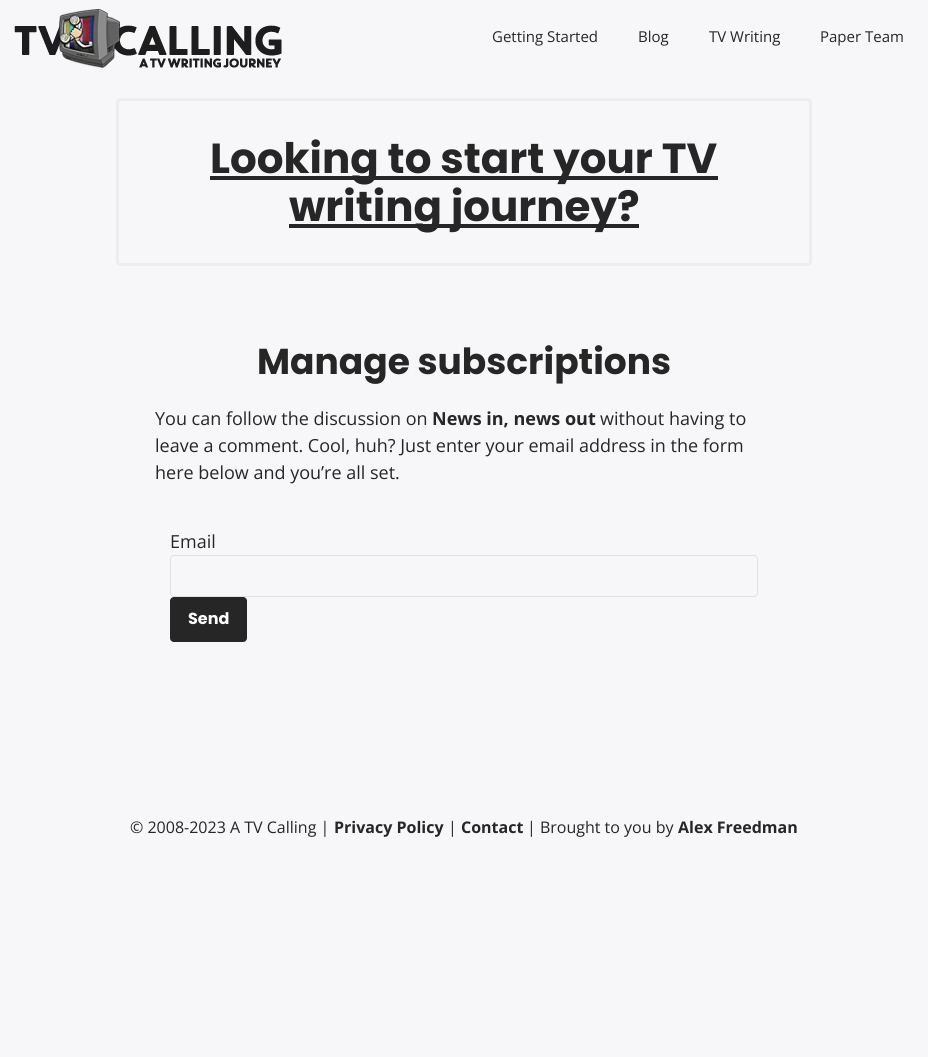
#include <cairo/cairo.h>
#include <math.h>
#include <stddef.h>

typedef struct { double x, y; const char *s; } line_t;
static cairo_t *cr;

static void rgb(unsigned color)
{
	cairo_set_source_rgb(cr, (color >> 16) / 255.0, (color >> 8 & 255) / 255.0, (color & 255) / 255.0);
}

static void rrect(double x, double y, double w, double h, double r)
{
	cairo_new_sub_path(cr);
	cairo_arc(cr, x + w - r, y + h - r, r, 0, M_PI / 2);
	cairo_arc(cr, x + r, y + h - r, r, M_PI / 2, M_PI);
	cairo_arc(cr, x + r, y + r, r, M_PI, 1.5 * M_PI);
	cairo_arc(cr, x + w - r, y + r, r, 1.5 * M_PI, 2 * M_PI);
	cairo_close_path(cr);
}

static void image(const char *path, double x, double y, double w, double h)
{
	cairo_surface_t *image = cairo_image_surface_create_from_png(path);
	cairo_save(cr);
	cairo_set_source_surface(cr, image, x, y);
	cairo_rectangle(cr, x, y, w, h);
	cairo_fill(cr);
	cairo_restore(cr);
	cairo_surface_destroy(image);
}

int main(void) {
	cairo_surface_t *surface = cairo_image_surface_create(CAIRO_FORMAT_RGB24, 928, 1057);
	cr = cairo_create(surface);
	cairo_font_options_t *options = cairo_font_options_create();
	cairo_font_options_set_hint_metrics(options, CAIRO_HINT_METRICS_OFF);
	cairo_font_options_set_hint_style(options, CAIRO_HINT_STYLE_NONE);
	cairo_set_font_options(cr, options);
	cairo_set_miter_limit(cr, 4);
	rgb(0xf7f7fa);
	cairo_paint(cr);
	image("img/1.png", 14, 9, 268, 59);
	rrect(117.5, 99.5, 693, 165, 2.5);
	rgb(0xededed);
	cairo_set_line_width(cr, 3);
	cairo_stroke(cr);
	rgb(0x262626);
	cairo_rectangle(cr, 210, 176, 508, 4);
	cairo_fill(cr);
	cairo_rectangle(cr, 289, 224, 350, 4);
	cairo_fill(cr);
	rrect(170.5, 555.5, 587, 41, 3.5);
	rgb(0xe0e0e0);
	cairo_set_line_width(cr, 1);
	cairo_stroke(cr);
	rgb(0x262626);
	rrect(170, 597, 77, 45, 4);
	cairo_fill(cr);
	cairo_select_font_face(cr, "Open Sans", CAIRO_FONT_SLANT_NORMAL, CAIRO_FONT_WEIGHT_NORMAL);
	cairo_set_font_size(cr, 15);
	{
		static const line_t items[] = {
			{492, 42, "Getting Started"},
			{638, 42, "Blog"},
			{709, 42, "TV Writing"},
			{820, 42, "Paper Team"},
		};
		for (size_t i = 0; i < sizeof items / sizeof *items; i++) {
			cairo_move_to(cr, items[i].x, items[i].y);
			cairo_show_text(cr, items[i].s);
		}
	}
	cairo_select_font_face(cr, "Poppins", CAIRO_FONT_SLANT_NORMAL, CAIRO_FONT_WEIGHT_BOLD);
	cairo_set_font_size(cr, 42);
	cairo_move_to(cr, 210, 173);
	cairo_show_text(cr, "Looking to start your TV");
	cairo_move_to(cr, 289, 221);
	cairo_show_text(cr, "writing journey?");
	cairo_set_font_size(cr, 36);
	cairo_move_to(cr, 257, 374);
	cairo_show_text(cr, "Manage subscriptions");
	cairo_select_font_face(cr, "Open Sans", CAIRO_FONT_SLANT_NORMAL, CAIRO_FONT_WEIGHT_NORMAL);
	cairo_set_font_size(cr, 18);
	cairo_move_to(cr, 155, 425);
	cairo_show_text(cr, "You can follow the discussion on");
	cairo_select_font_face(cr, "Open Sans", CAIRO_FONT_SLANT_NORMAL, CAIRO_FONT_WEIGHT_BOLD);
	cairo_move_to(cr, 432, 425);
	cairo_show_text(cr, "News in, news out");
	cairo_select_font_face(cr, "Open Sans", CAIRO_FONT_SLANT_NORMAL, CAIRO_FONT_WEIGHT_NORMAL);
	{
		static const line_t items[] = {
			{600, 425, "without having to"},
			{155, 452, "leave a comment. Cool, huh? Just enter your email address in the form"},
			{155, 479, "here below and you’re all set."},
			{170, 548, "Email"},
		};
		for (size_t i = 0; i < sizeof items / sizeof *items; i++) {
			cairo_move_to(cr, items[i].x, items[i].y);
			cairo_show_text(cr, items[i].s);
		}
	}
	cairo_select_font_face(cr, "Poppins", CAIRO_FONT_SLANT_NORMAL, CAIRO_FONT_WEIGHT_BOLD);
	cairo_set_font_size(cr, 16);
	rgb(0xffffff);
	cairo_move_to(cr, 188, 624);
	cairo_show_text(cr, "Send");
	cairo_select_font_face(cr, "Open Sans", CAIRO_FONT_SLANT_NORMAL, CAIRO_FONT_WEIGHT_NORMAL);
	rgb(0x262626);
	cairo_move_to(cr, 130, 833);
	cairo_show_text(cr, "© 2008-2023 A TV Calling |");
	cairo_select_font_face(cr, "Open Sans", CAIRO_FONT_SLANT_NORMAL, CAIRO_FONT_WEIGHT_BOLD);
	cairo_move_to(cr, 334, 833);
	cairo_show_text(cr, "Privacy Policy");
	cairo_select_font_face(cr, "Open Sans", CAIRO_FONT_SLANT_NORMAL, CAIRO_FONT_WEIGHT_NORMAL);
	cairo_move_to(cr, 448, 833);
	cairo_show_text(cr, "|");
	cairo_select_font_face(cr, "Open Sans", CAIRO_FONT_SLANT_NORMAL, CAIRO_FONT_WEIGHT_BOLD);
	cairo_move_to(cr, 461, 833);
	cairo_show_text(cr, "Contact");
	cairo_select_font_face(cr, "Open Sans", CAIRO_FONT_SLANT_NORMAL, CAIRO_FONT_WEIGHT_NORMAL);
	cairo_move_to(cr, 527, 833);
	cairo_show_text(cr, "| Brought to you by");
	cairo_select_font_face(cr, "Open Sans", CAIRO_FONT_SLANT_NORMAL, CAIRO_FONT_WEIGHT_BOLD);
	cairo_move_to(cr, 678, 833);
	cairo_show_text(cr, "Alex Freedman");
	cairo_surface_write_to_png(surface, "page.png");
	cairo_font_options_destroy(options);
	cairo_destroy(cr);
	cairo_surface_destroy(surface);
	return 0;
}
